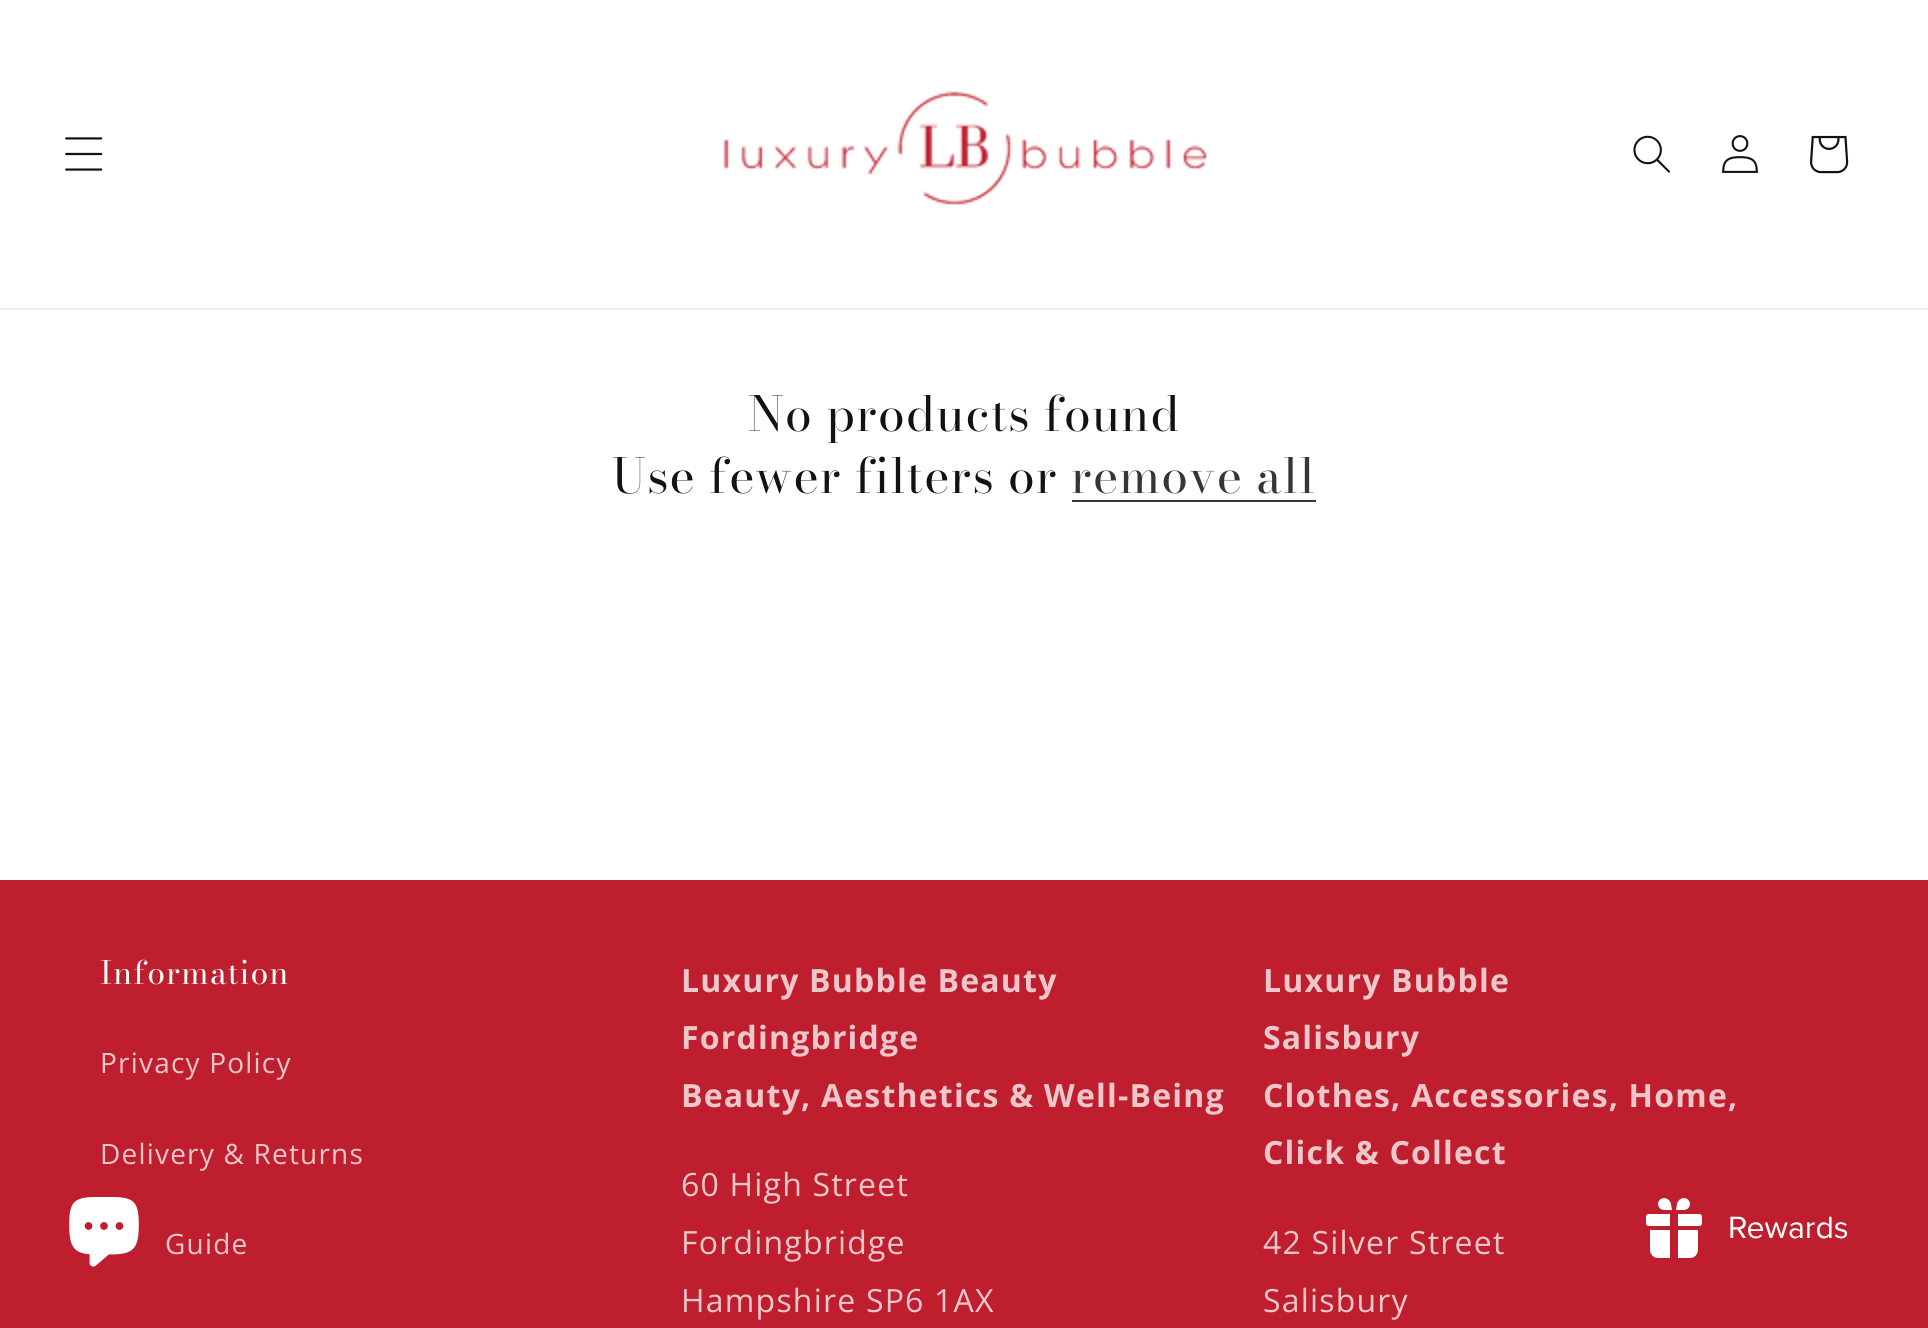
#include <cairo/cairo.h>
#include <math.h>
#include <stddef.h>

typedef struct { double x, y; const char *s; } line_t;
static cairo_t *cr;

static void rgb(unsigned color)
{
	cairo_set_source_rgb(cr, (color >> 16) / 255.0, (color >> 8 & 255) / 255.0, (color & 255) / 255.0);
}

static void tracked(double x, double y, const char *s, double letter, double word)
{
	cairo_move_to(cr, x, y);
	while (*s) {
		char ch[5] = {0};
		int n = 0;
		do ch[n++] = *s++; while ((*s & 0xC0) == 0x80);
		cairo_show_text(cr, ch);
		cairo_rel_move_to(cr, letter + word * (*ch == ' '), 0);
	}
}

static void image(const char *path, double x, double y, double w, double h)
{
	cairo_surface_t *image = cairo_image_surface_create_from_png(path);
	cairo_save(cr);
	cairo_set_source_surface(cr, image, x, y);
	cairo_rectangle(cr, x, y, w, h);
	cairo_fill(cr);
	cairo_restore(cr);
	cairo_surface_destroy(image);
}

int main(void) {
	cairo_surface_t *surface = cairo_image_surface_create(CAIRO_FORMAT_RGB24, 1928, 1328);
	cr = cairo_create(surface);
	cairo_font_options_t *options = cairo_font_options_create();
	cairo_font_options_set_hint_metrics(options, CAIRO_HINT_METRICS_OFF);
	cairo_font_options_set_hint_style(options, CAIRO_HINT_STYLE_NONE);
	cairo_set_font_options(cr, options);
	cairo_set_miter_limit(cr, 4);
	rgb(0xffffff);
	cairo_paint(cr);
	rgb(0xececec);
	cairo_rectangle(cr, 0, 308, 1928, 2);
	cairo_fill(cr);
	image("img/1.png", 65, 137, 38, 34);
	image("img/2.png", 723, 91, 484, 114);
	image("img/3.png", 1633, 135, 37, 38);
	image("img/4.png", 1722, 135, 36, 38);
	image("img/5.png", 1810, 135, 39, 39);
	rgb(0x363636);
	cairo_rectangle(cr, 1072, 500, 244, 2);
	cairo_fill(cr);
	rgb(0xbe1e2d);
	cairo_rectangle(cr, 0, 880, 1928, 448);
	cairo_fill(cr);
	image("img/6.png", 69, 1197, 70, 70);
	image("img/7.png", 1646, 1198, 202, 60);
	cairo_select_font_face(cr, "Bodoni Moda", CAIRO_FONT_SLANT_NORMAL, CAIRO_FONT_WEIGHT_NORMAL);
	cairo_set_font_size(cr, 48);
	rgb(0x121212);
	tracked(748, 431, "No products found", 1.2, 0);
	tracked(612, 493, "Use fewer filters or", 1.2, 0);
	rgb(0x363636);
	tracked(1071, 493, "remove all", 1.2, 0);
	cairo_select_font_face(cr, "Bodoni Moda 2", CAIRO_FONT_SLANT_NORMAL, CAIRO_FONT_WEIGHT_NORMAL);
	cairo_set_font_size(cr, 32);
	rgb(0xffffff);
	tracked(100, 984, "Information", 1.2, 0);
	cairo_select_font_face(cr, "Open Sans", CAIRO_FONT_SLANT_NORMAL, CAIRO_FONT_WEIGHT_NORMAL);
	cairo_set_font_size(cr, 28);
	rgb(0xefc7cb);
	{
		static const line_t items[] = {
			{100, 1073, "Privacy Policy"},
			{100, 1164, "Delivery & Returns"},
			{165, 1254, "Guide"},
		};
		for (size_t i = 0; i < sizeof items / sizeof *items; i++) {
			tracked(items[i].x, items[i].y, items[i].s, 1.2, 0);
		}
	}
	cairo_select_font_face(cr, "Open Sans", CAIRO_FONT_SLANT_NORMAL, CAIRO_FONT_WEIGHT_BOLD);
	cairo_set_font_size(cr, 32);
	{
		static const line_t items[] = {
			{681, 992, "Luxury Bubble Beauty"},
			{681, 1049, "Fordingbridge"},
			{681, 1107, "Beauty, Aesthetics & Well-Being"},
		};
		for (size_t i = 0; i < sizeof items / sizeof *items; i++) {
			tracked(items[i].x, items[i].y, items[i].s, 1.2, 0);
		}
	}
	cairo_select_font_face(cr, "Open Sans", CAIRO_FONT_SLANT_NORMAL, CAIRO_FONT_WEIGHT_NORMAL);
	{
		static const line_t items[] = {
			{681, 1196, "60 High Street"},
			{681, 1254, "Fordingbridge"},
			{681, 1312, "Hampshire SP6 1AX"},
		};
		for (size_t i = 0; i < sizeof items / sizeof *items; i++) {
			tracked(items[i].x, items[i].y, items[i].s, 1.2, 0);
		}
	}
	cairo_select_font_face(cr, "Open Sans", CAIRO_FONT_SLANT_NORMAL, CAIRO_FONT_WEIGHT_BOLD);
	{
		static const line_t items[] = {
			{1263, 992, "Luxury Bubble"},
			{1263, 1049, "Salisbury"},
			{1263, 1107, "Clothes, Accessories, Home,"},
			{1263, 1164, "Click & Collect"},
		};
		for (size_t i = 0; i < sizeof items / sizeof *items; i++) {
			tracked(items[i].x, items[i].y, items[i].s, 1.2, 0);
		}
	}
	cairo_select_font_face(cr, "Open Sans", CAIRO_FONT_SLANT_NORMAL, CAIRO_FONT_WEIGHT_NORMAL);
	tracked(1263, 1254, "42 Silver Street", 1.2, 0);
	tracked(1263, 1312, "Salisbury", 1.2, 0);
	cairo_surface_write_to_png(surface, "page.png");
	cairo_font_options_destroy(options);
	cairo_destroy(cr);
	cairo_surface_destroy(surface);
	return 0;
}
